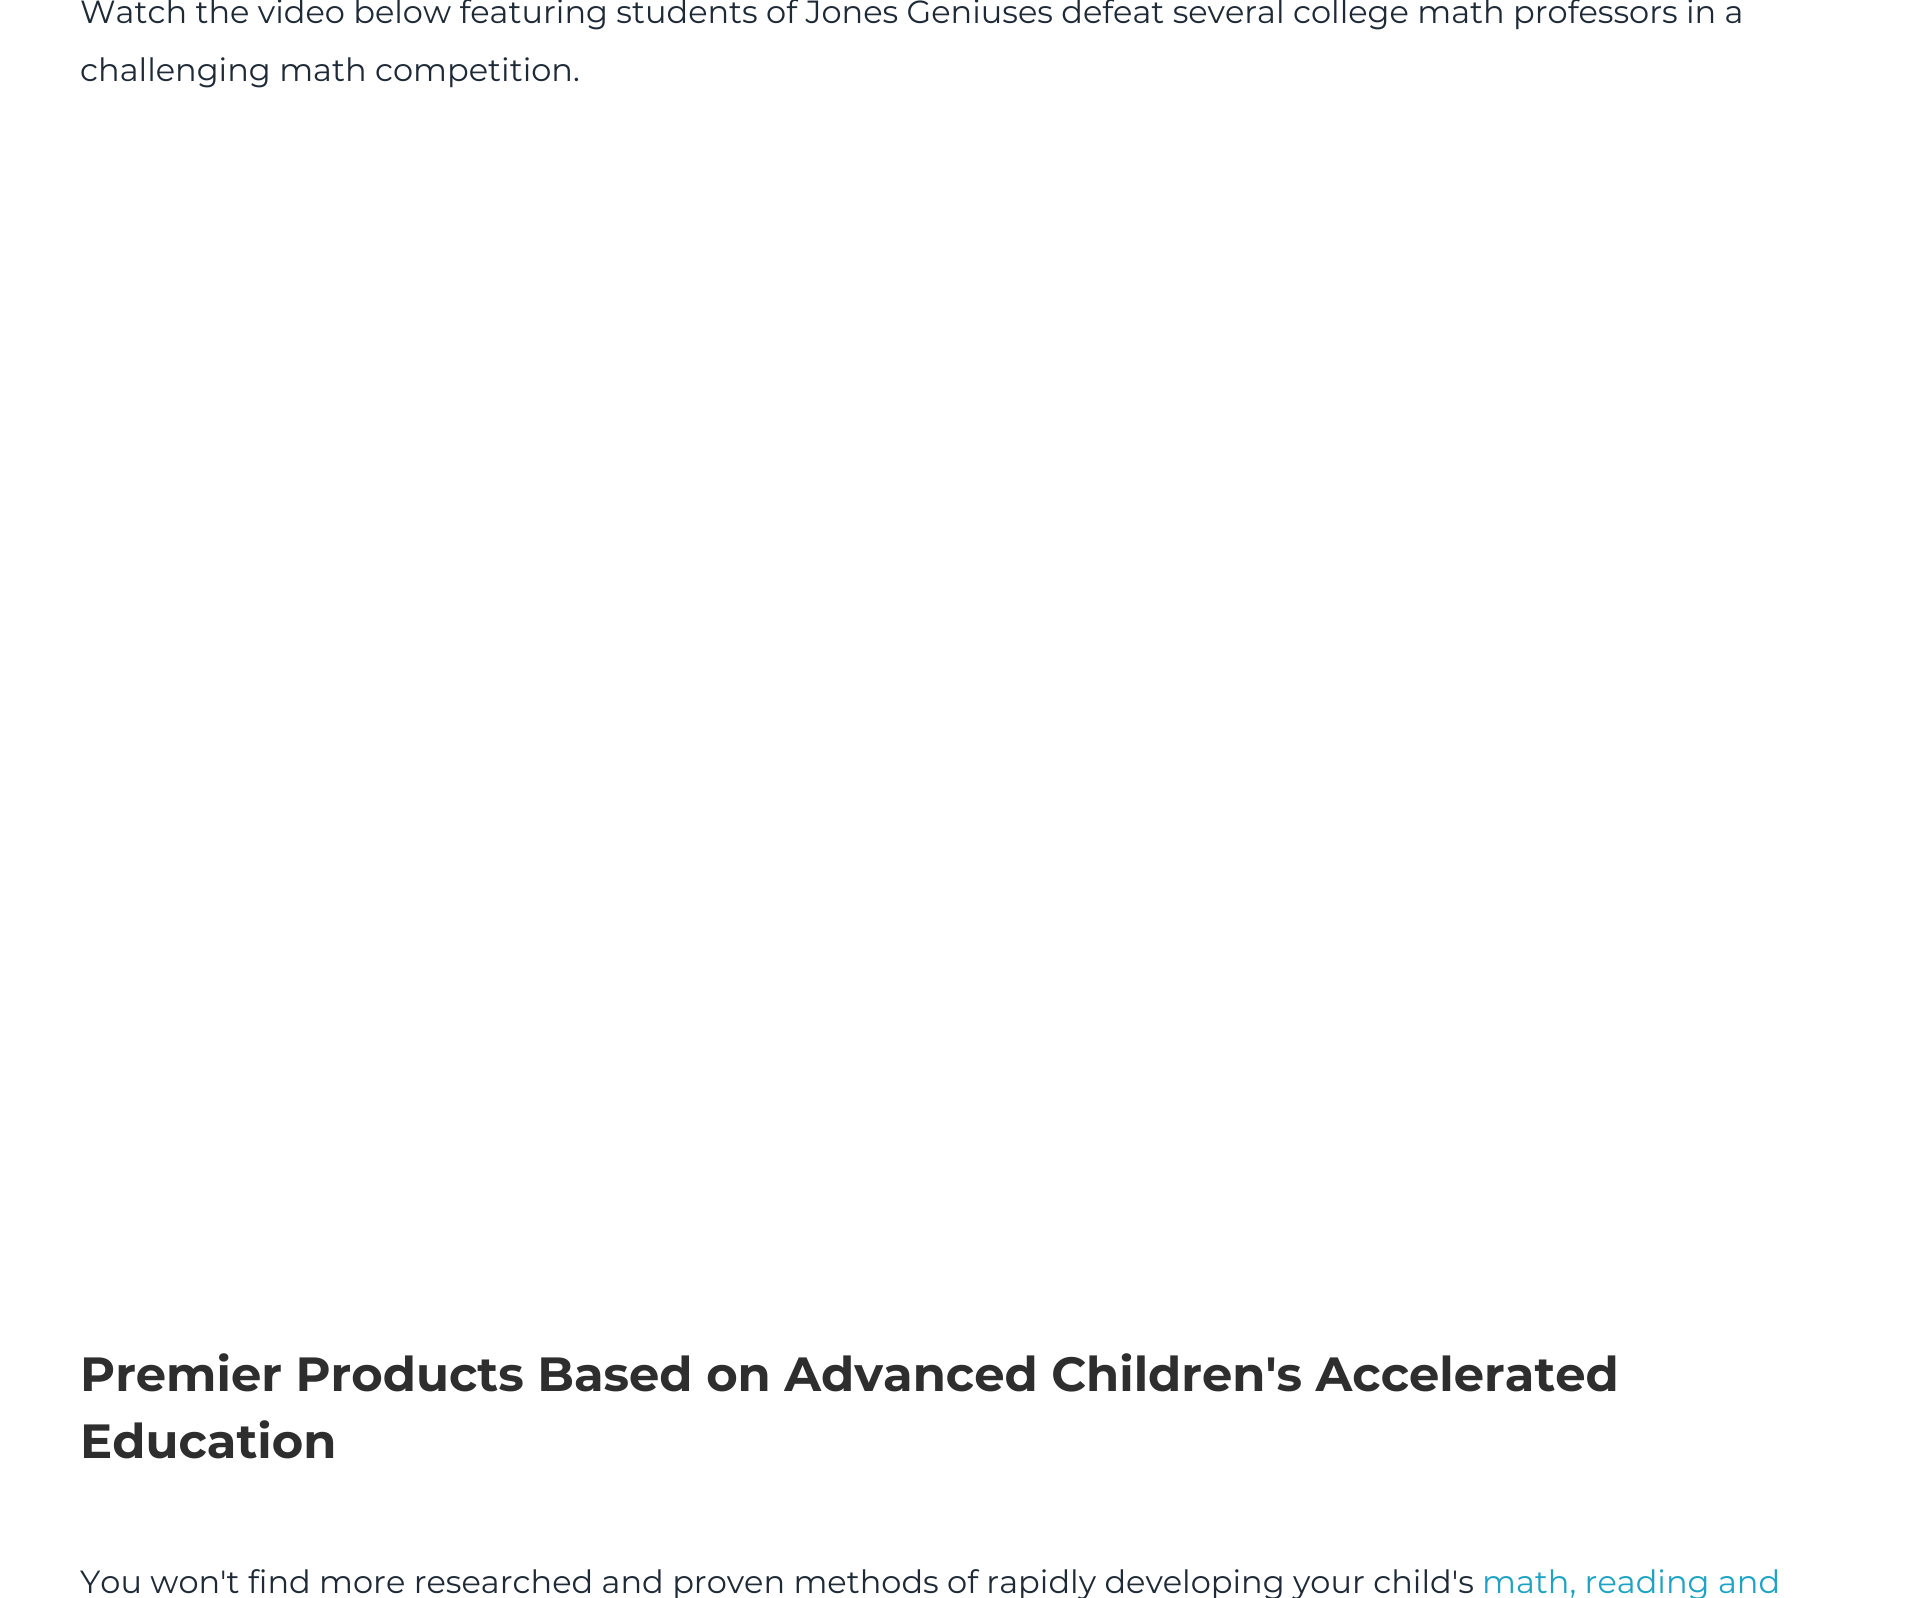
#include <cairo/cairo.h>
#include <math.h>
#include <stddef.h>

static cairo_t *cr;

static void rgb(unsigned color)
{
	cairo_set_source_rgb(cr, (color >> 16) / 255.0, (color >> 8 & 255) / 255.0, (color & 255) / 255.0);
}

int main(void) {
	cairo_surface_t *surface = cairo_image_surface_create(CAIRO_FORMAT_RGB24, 1921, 1598);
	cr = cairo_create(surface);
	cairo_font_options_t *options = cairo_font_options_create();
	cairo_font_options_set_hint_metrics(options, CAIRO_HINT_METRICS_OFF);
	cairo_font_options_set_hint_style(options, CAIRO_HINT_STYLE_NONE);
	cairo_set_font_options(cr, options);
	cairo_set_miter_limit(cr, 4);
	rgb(0xffffff);
	cairo_paint(cr);
	cairo_select_font_face(cr, "Montserrat", CAIRO_FONT_SLANT_NORMAL, CAIRO_FONT_WEIGHT_NORMAL);
	cairo_set_font_size(cr, 32);
	rgb(0x1f2a37);
	cairo_move_to(cr, 80, 23);
	cairo_show_text(cr, "Watch the video below featuring students of Jones Geniuses defeat several college math professors in a");
	cairo_move_to(cr, 80, 81);
	cairo_show_text(cr, "challenging math competition.");
	cairo_select_font_face(cr, "Montserrat", CAIRO_FONT_SLANT_NORMAL, CAIRO_FONT_WEIGHT_BOLD);
	cairo_set_font_size(cr, 48);
	rgb(0x2e2e2e);
	cairo_move_to(cr, 80, 1391);
	cairo_show_text(cr, "Premier Products Based on Advanced Children's Accelerated");
	cairo_move_to(cr, 80, 1458);
	cairo_show_text(cr, "Education");
	cairo_select_font_face(cr, "Montserrat", CAIRO_FONT_SLANT_NORMAL, CAIRO_FONT_WEIGHT_NORMAL);
	cairo_set_font_size(cr, 32);
	rgb(0x1f2a37);
	cairo_move_to(cr, 80, 1593);
	cairo_show_text(cr, "You won't find more researched and proven methods of rapidly developing your child's");
	rgb(0x1fa3c3);
	cairo_move_to(cr, 1482, 1593);
	cairo_show_text(cr, "math, reading and");
	cairo_surface_write_to_png(surface, "page.png");
	cairo_font_options_destroy(options);
	cairo_destroy(cr);
	cairo_surface_destroy(surface);
	return 0;
}
